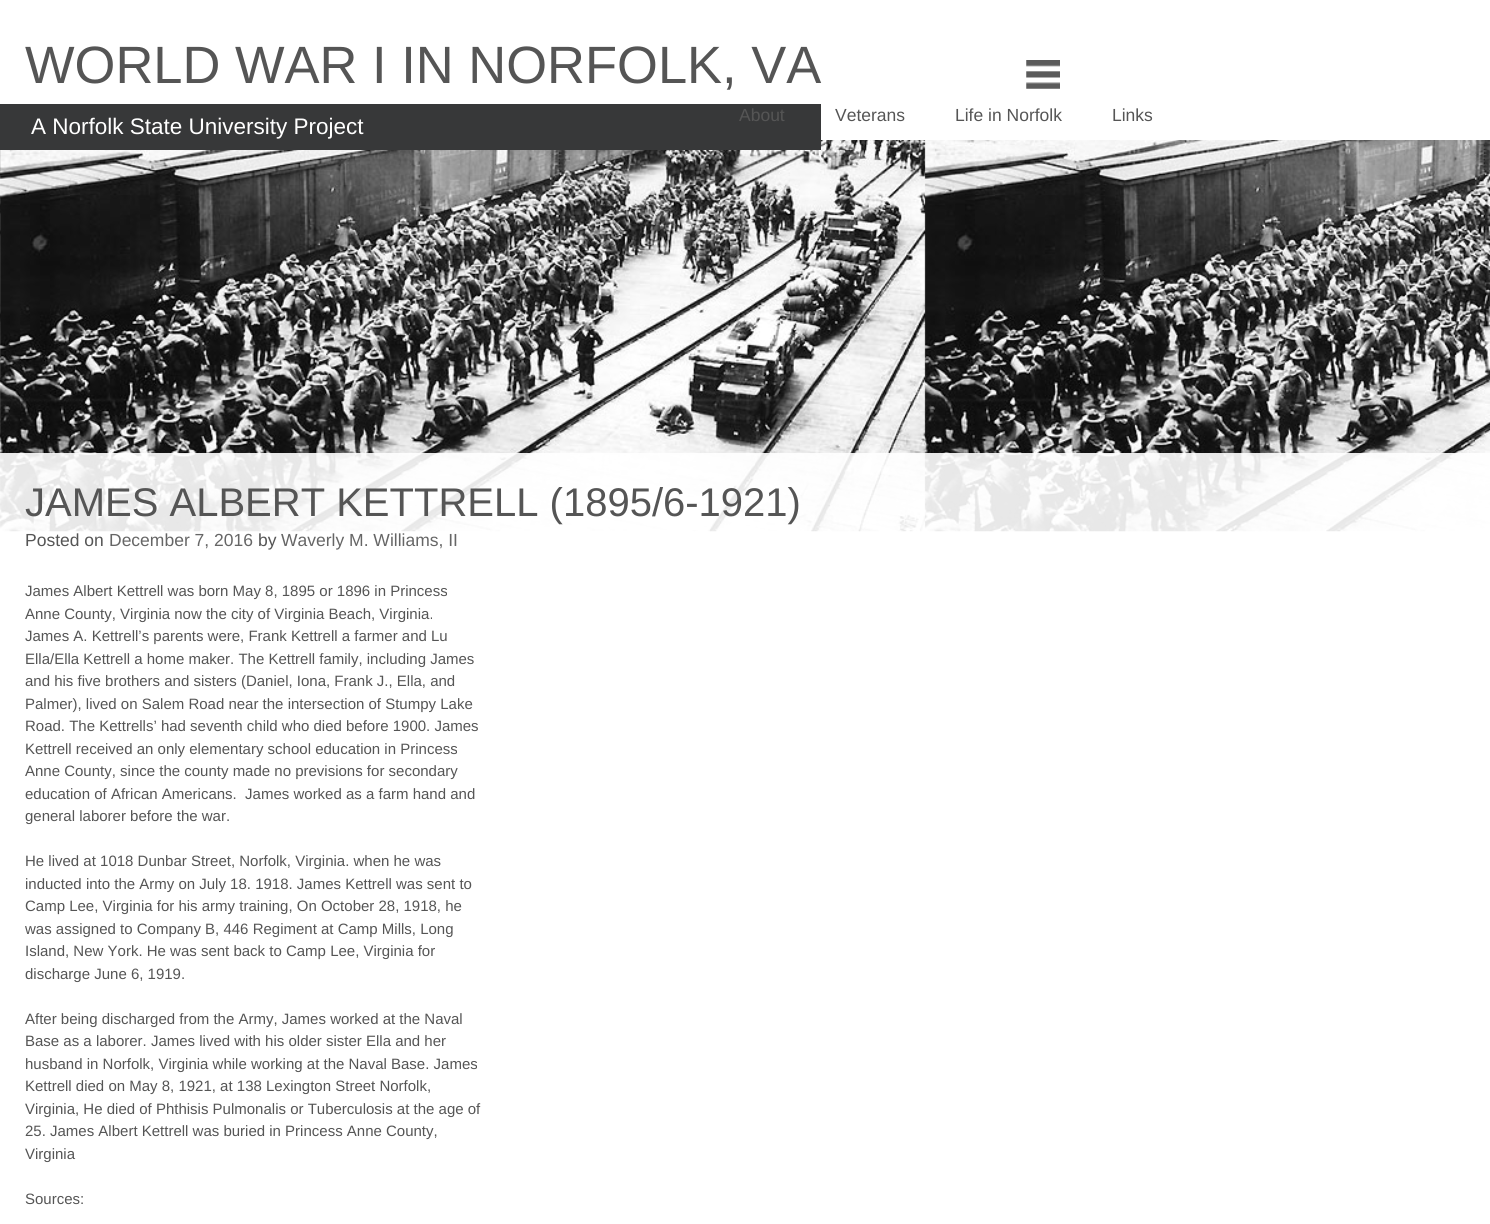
#include <cairo/cairo.h>
#include <math.h>
#include <stddef.h>

typedef struct { double x, y; const char *s; } line_t;
static cairo_t *cr;

static void rgb(unsigned color)
{
	cairo_set_source_rgb(cr, (color >> 16) / 255.0, (color >> 8 & 255) / 255.0, (color & 255) / 255.0);
}

static void image(const char *path, double x, double y, double w, double h)
{
	cairo_surface_t *image = cairo_image_surface_create_from_png(path);
	cairo_save(cr);
	cairo_set_source_surface(cr, image, x, y);
	cairo_rectangle(cr, x, y, w, h);
	cairo_fill(cr);
	cairo_restore(cr);
	cairo_surface_destroy(image);
}

int main(void) {
	cairo_surface_t *surface = cairo_image_surface_create(CAIRO_FORMAT_RGB24, 1490, 1224);
	cr = cairo_create(surface);
	cairo_font_options_t *options = cairo_font_options_create();
	cairo_font_options_set_hint_metrics(options, CAIRO_HINT_METRICS_OFF);
	cairo_font_options_set_hint_style(options, CAIRO_HINT_STYLE_NONE);
	cairo_set_font_options(cr, options);
	cairo_set_miter_limit(cr, 4);
	rgb(0xffffff);
	cairo_paint(cr);
	image("img/1.png", 0, 140, 1490, 392);
	rgb(0x373839);
	cairo_rectangle(cr, 0, 104, 821, 46);
	cairo_fill(cr);
	image("img/2.png", 1026, 60, 34, 29);
	cairo_set_source_rgba(cr, 1, 1, 1, 0.9);
	cairo_rectangle(cr, 0, 453, 1490, 79);
	cairo_fill(cr);
	cairo_select_font_face(cr, "Liberation Sans", CAIRO_FONT_SLANT_NORMAL, CAIRO_FONT_WEIGHT_NORMAL);
	cairo_set_font_size(cr, 52.5);
	rgb(0x555555);
	cairo_move_to(cr, 25, 83);
	cairo_show_text(cr, "WORLD WAR I IN NORFOLK, VA");
	cairo_set_font_size(cr, 22.5);
	rgb(0xffffff);
	cairo_move_to(cr, 31, 134);
	cairo_show_text(cr, "A Norfolk State University Project");
	cairo_set_font_size(cr, 17.5);
	rgb(0x555555);
	{
		static const line_t items[] = {
			{739, 121, "About"},
			{835, 121, "Veterans"},
			{955, 121, "Life in Norfolk"},
			{1112, 121, "Links"},
		};
		for (size_t i = 0; i < sizeof items / sizeof *items; i++) {
			cairo_move_to(cr, items[i].x, items[i].y);
			cairo_show_text(cr, items[i].s);
		}
	}
	cairo_set_font_size(cr, 40);
	cairo_move_to(cr, 25, 516);
	cairo_show_text(cr, "JAMES ALBERT KETTRELL (1895/6-1921)");
	cairo_set_font_size(cr, 17.5);
	cairo_move_to(cr, 25, 546);
	cairo_show_text(cr, "Posted on");
	rgb(0x666666);
	cairo_move_to(cr, 109, 546);
	cairo_show_text(cr, "December 7, 2016");
	rgb(0x555555);
	cairo_move_to(cr, 258, 546);
	cairo_show_text(cr, "by");
	rgb(0x666666);
	cairo_move_to(cr, 281, 546);
	cairo_show_text(cr, "Waverly M. Williams, II");
	cairo_set_font_size(cr, 15);
	rgb(0x555555);
	{
		static const line_t items[] = {
			{25, 596, "James Albert Kettrell was born May 8, 1895 or 1896 in Princess"},
			{25, 619, "Anne County, Virginia now the city of Virginia Beach, Virginia."},
			{25, 641, "James A. Kettrell’s parents were, Frank Kettrell a farmer and Lu"},
			{25, 664, "Ella/Ella Kettrell a home maker. The Kettrell family, including James"},
			{25, 686, "and his five brothers and sisters (Daniel, Iona, Frank J., Ella, and"},
			{25, 709, "Palmer), lived on Salem Road near the intersection of Stumpy Lake"},
			{25, 731, "Road. The Kettrells’ had seventh child who died before 1900. James"},
			{25, 754, "Kettrell received an only elementary school education in Princess"},
			{25, 776, "Anne County, since the county made no previsions for secondary"},
			{25, 799, "education of African Americans.  James worked as a farm hand and"},
			{25, 821, "general laborer before the war."},
			{25, 866, "He lived at 1018 Dunbar Street, Norfolk, Virginia. when he was"},
			{25, 889, "inducted into the Army on July 18. 1918. James Kettrell was sent to"},
			{25, 911, "Camp Lee, Virginia for his army training, On October 28, 1918, he"},
			{25, 934, "was assigned to Company B, 446 Regiment at Camp Mills, Long"},
			{25, 956, "Island, New York. He was sent back to Camp Lee, Virginia for"},
			{25, 979, "discharge June 6, 1919."},
			{25, 1024, "After being discharged from the Army, James worked at the Naval"},
			{25, 1046, "Base as a laborer. James lived with his older sister Ella and her"},
			{25, 1069, "husband in Norfolk, Virginia while working at the Naval Base. James"},
			{25, 1091, "Kettrell died on May 8, 1921, at 138 Lexington Street Norfolk,"},
			{25, 1114, "Virginia, He died of Phthisis Pulmonalis or Tuberculosis at the age of"},
			{25, 1136, "25. James Albert Kettrell was buried in Princess Anne County,"},
			{25, 1159, "Virginia"},
			{25, 1204, "Sources:"},
		};
		for (size_t i = 0; i < sizeof items / sizeof *items; i++) {
			cairo_move_to(cr, items[i].x, items[i].y);
			cairo_show_text(cr, items[i].s);
		}
	}
	cairo_surface_write_to_png(surface, "page.png");
	cairo_font_options_destroy(options);
	cairo_destroy(cr);
	cairo_surface_destroy(surface);
	return 0;
}
